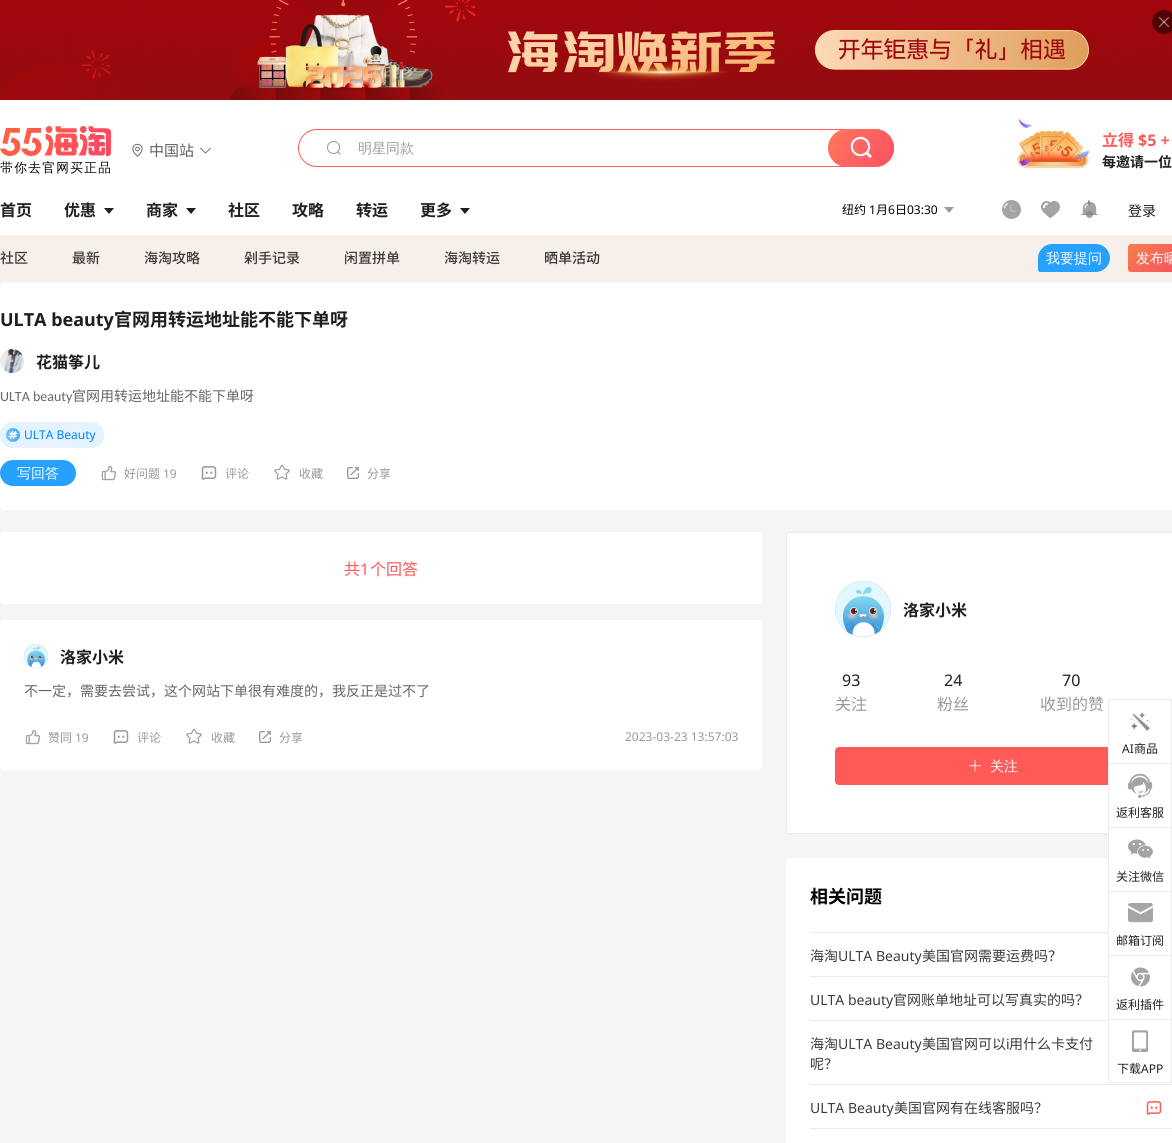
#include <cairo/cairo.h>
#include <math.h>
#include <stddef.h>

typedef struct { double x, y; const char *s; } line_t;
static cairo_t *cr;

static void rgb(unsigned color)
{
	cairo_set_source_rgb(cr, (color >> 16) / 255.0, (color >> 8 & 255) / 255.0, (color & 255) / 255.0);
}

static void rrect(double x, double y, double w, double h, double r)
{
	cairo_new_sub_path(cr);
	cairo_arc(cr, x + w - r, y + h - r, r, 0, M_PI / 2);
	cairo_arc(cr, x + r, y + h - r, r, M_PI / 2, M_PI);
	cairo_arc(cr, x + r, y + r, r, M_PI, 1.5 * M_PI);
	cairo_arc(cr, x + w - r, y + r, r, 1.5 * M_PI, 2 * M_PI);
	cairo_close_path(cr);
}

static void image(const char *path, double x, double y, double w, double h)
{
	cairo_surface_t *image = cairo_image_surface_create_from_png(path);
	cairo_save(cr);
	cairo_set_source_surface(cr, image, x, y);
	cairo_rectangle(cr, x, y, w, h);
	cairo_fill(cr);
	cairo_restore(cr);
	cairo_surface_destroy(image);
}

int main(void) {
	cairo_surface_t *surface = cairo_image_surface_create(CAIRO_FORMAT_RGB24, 1172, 1143);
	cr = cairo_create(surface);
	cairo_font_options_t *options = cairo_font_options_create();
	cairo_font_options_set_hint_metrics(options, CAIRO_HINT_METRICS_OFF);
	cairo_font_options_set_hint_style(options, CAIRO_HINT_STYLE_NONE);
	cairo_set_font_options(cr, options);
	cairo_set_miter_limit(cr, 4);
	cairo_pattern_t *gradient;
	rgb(0xf5f5f5);
	cairo_paint(cr);
	rgb(0xffffff);
	cairo_rectangle(cr, 0, 100, 1172, 135);
	cairo_fill(cr);
	image("img/1.png", 0, 0, 1172, 100);
	image("img/2.png", 1152, 10, 20, 24);
	image("img/3.png", 0, 126, 111, 48);
	image("img/4.png", 132, 143, 11, 14);
	image("img/5.png", 200, 147, 11, 7);
	image("img/6.png", 1015, 117, 75, 53);
	rrect(298.5, 129.5, 595, 37, 18.5);
	rgb(0xfe5a58);
	cairo_set_line_width(cr, 1);
	cairo_stroke(cr);
	image("img/7.png", 327, 141, 14, 14);
	gradient = cairo_pattern_create_linear(832, 124, 890, 172);
	cairo_pattern_add_color_stop_rgba(gradient, 0, 1, 0.467, 0.361, 1);
	cairo_pattern_add_color_stop_rgba(gradient, 1, 1, 0.314, 0.388, 1);
	cairo_set_source(cr, gradient);
	cairo_pattern_destroy(gradient);
	rrect(828, 129, 66, 38, 19);
	cairo_fill(cr);
	image("img/8.png", 850, 136, 23, 25);
	rgb(0x1f1f1f);
	cairo_new_path(cr);
	cairo_move_to(cr, 104, 208);
	cairo_line_to(cr, 109, 214);
	cairo_line_to(cr, 114, 208);
	cairo_close_path(cr);
	cairo_fill(cr);
	cairo_new_path(cr);
	cairo_move_to(cr, 186, 208);
	cairo_line_to(cr, 191, 214);
	cairo_line_to(cr, 196, 208);
	cairo_close_path(cr);
	cairo_fill(cr);
	cairo_new_path(cr);
	cairo_move_to(cr, 460, 208);
	cairo_line_to(cr, 465, 214);
	cairo_line_to(cr, 470, 208);
	cairo_close_path(cr);
	cairo_fill(cr);
	rgb(0x999999);
	cairo_new_path(cr);
	cairo_move_to(cr, 944, 207);
	cairo_line_to(cr, 949, 213);
	cairo_line_to(cr, 954, 207);
	cairo_close_path(cr);
	cairo_fill(cr);
	image("img/9.png", 1002, 200, 19, 19);
	image("img/10.png", 1041, 201, 19, 17);
	image("img/11.png", 1081, 200, 17, 18);
	rgb(0xf7f0ea);
	cairo_rectangle(cr, 0, 235, 1172, 47);
	cairo_fill(cr);
	rgb(0x27a1ff);
	cairo_new_path(cr);
	cairo_move_to(cr, 1052, 244);
	cairo_line_to(cr, 1096, 244);
	cairo_curve_to(cr, 1103.5, 244, 1110, 250.5, 1110, 258);
	cairo_curve_to(cr, 1110, 265.5, 1103.5, 272, 1096, 272);
	cairo_line_to(cr, 1040, 272);
	cairo_curve_to(cr, 1039, 272, 1038, 271, 1038, 270);
	cairo_line_to(cr, 1038, 258);
	cairo_curve_to(cr, 1038, 250.5, 1044.5, 244, 1052, 244);
	cairo_close_path(cr);
	cairo_fill(cr);
	gradient = cairo_pattern_create_linear(1142, 232, 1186, 284);
	cairo_pattern_add_color_stop_rgba(gradient, 0.01, 0.969, 0.498, 0.294, 1);
	cairo_pattern_add_color_stop_rgba(gradient, 0.99, 0.965, 0.271, 0.404, 1);
	cairo_set_source(cr, gradient);
	cairo_pattern_destroy(gradient);
	rrect(1128, 244, 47, 28, 3);
	cairo_fill(cr);
	rgb(0xffffff);
	rrect(0, 283, 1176, 227, 4);
	cairo_fill(cr);
	image("img/12.png", 0, 349, 24, 24);
	rgb(0xe5f2ff);
	rrect(0, 422, 104, 26, 12);
	cairo_fill(cr);
	image("img/13.png", 6, 428, 14, 14);
	rgb(0x27a1ff);
	rrect(0, 460, 76, 26, 13);
	cairo_fill(cr);
	image("img/14.png", 101, 465, 16, 16);
	image("img/15.png", 201, 466, 16, 14);
	image("img/16.png", 274, 464, 16, 16);
	image("img/17.png", 347, 467, 12, 12);
	rgb(0xffffff);
	rrect(0, 532, 762, 72, 4);
	cairo_fill(cr);
	rrect(0, 620, 762, 150, 4);
	cairo_fill(cr);
	rgb(0xc0c4cc);
	cairo_arc(cr, 36, 656, 12, 0, 2 * M_PI);
	cairo_fill(cr);
	image("img/18.png", 24, 644, 24, 24);
	image("img/14.png", 25, 729, 16, 16);
	image("img/15.png", 113, 730, 16, 14);
	image("img/16.png", 186, 728, 16, 16);
	image("img/17.png", 259, 731, 12, 12);
	rgb(0xffffff);
	rrect(786.5, 532.5, 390, 301, 3.5);
	cairo_fill_preserve(cr);
	rgb(0xececec);
	cairo_stroke(cr);
	rgb(0xc0c4cc);
	cairo_arc(cr, 863, 609, 28, 0, 2 * M_PI);
	cairo_fill(cr);
	image("img/19.png", 835, 581, 56, 56);
	rgb(0xfe5a58);
	rrect(835, 747, 316, 38, 4);
	cairo_fill(cr);
	image("img/20.png", 969, 760, 12, 12);
	rgb(0xffffff);
	rrect(786, 858, 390, 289, 4);
	cairo_fill(cr);
	rgb(0xececec);
	cairo_rectangle(cr, 810, 932, 298, 1);
	cairo_fill(cr);
	rgb(0xeaeaea);
	rrect(810, 976, 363, 1, 0.5);
	cairo_fill(cr);
	rrect(810, 1020, 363, 1, 0.5);
	cairo_fill(cr);
	rrect(810, 1084, 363, 1, 0.5);
	cairo_fill(cr);
	image("img/21.png", 1146, 1101, 16, 14);
	rrect(810, 1128, 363, 1, 0.5);
	cairo_fill(cr);
	rgb(0xffffff);
	cairo_rectangle(cr, 1109, 747, 42, 14);
	cairo_fill(cr);
	cairo_rectangle(cr, 1108.5, 699.5, 63, 63);
	rgb(0xececec);
	cairo_stroke(cr);
	image("img/22.png", 1131, 712, 19, 19);
	rgb(0xffffff);
	cairo_rectangle(cr, 1109, 761, 62, 2);
	cairo_fill(cr);
	cairo_rectangle(cr, 1109, 764, 42, 21);
	cairo_fill(cr);
	cairo_rectangle(cr, 1108.5, 763.5, 63, 63);
	rgb(0xececec);
	cairo_stroke(cr);
	image("img/23.png", 1128, 773, 25, 25);
	rgb(0xffffff);
	cairo_rectangle(cr, 1109, 826, 62, 1);
	cairo_fill(cr);
	cairo_rectangle(cr, 1109, 833, 62, 25);
	cairo_fill(cr);
	cairo_rectangle(cr, 1108.5, 827.5, 63, 63);
	rgb(0xececec);
	cairo_stroke(cr);
	image("img/24.png", 1128, 839, 25, 20);
	rgb(0xffffff);
	cairo_rectangle(cr, 1109, 890, 62, 1);
	cairo_fill(cr);
	cairo_rectangle(cr, 1108.5, 891.5, 63, 63);
	rgb(0xececec);
	cairo_stroke(cr);
	image("img/25.png", 1128, 903, 25, 20);
	rgb(0xffffff);
	cairo_rectangle(cr, 1109, 954, 62, 1);
	cairo_fill(cr);
	cairo_rectangle(cr, 1109, 976, 62, 1);
	cairo_fill(cr);
	cairo_rectangle(cr, 1108.5, 955.5, 63, 63);
	rgb(0xececec);
	cairo_stroke(cr);
	image("img/26.png", 1131, 967, 19, 20);
	rgb(0xffffff);
	cairo_rectangle(cr, 1109, 1018, 62, 1);
	cairo_fill(cr);
	cairo_rectangle(cr, 1109, 1020, 62, 1);
	cairo_fill(cr);
	cairo_rectangle(cr, 1108.5, 1019.5, 63, 63);
	rgb(0xececec);
	cairo_stroke(cr);
	image("img/27.png", 1132, 1030, 16, 22);
	cairo_select_font_face(cr, "Noto Sans CJK SC", CAIRO_FONT_SLANT_NORMAL, CAIRO_FONT_WEIGHT_NORMAL);
	cairo_set_font_size(cr, 15);
	rgb(0x606266);
	cairo_move_to(cr, 149, 156);
	cairo_show_text(cr, "中国站");
	cairo_select_font_face(cr, "Noto Sans CJK SC", CAIRO_FONT_SLANT_NORMAL, CAIRO_FONT_WEIGHT_BOLD);
	cairo_set_font_size(cr, 16);
	rgb(0xfe5a58);
	cairo_move_to(cr, 1102, 146);
	cairo_show_text(cr, "立得");
	cairo_select_font_face(cr, "Noto Sans", CAIRO_FONT_SLANT_NORMAL, CAIRO_FONT_WEIGHT_BOLD);
	cairo_move_to(cr, 1138, 146);
	cairo_show_text(cr, "$5 +");
	cairo_select_font_face(cr, "Noto Sans CJK SC", CAIRO_FONT_SLANT_NORMAL, CAIRO_FONT_WEIGHT_BOLD);
	cairo_set_font_size(cr, 14);
	rgb(0x1f1f1f);
	cairo_move_to(cr, 1102, 167);
	cairo_show_text(cr, "每邀请一位");
	cairo_select_font_face(cr, "WenQuanYi Zen Hei Medium", CAIRO_FONT_SLANT_NORMAL, CAIRO_FONT_WEIGHT_NORMAL);
	rgb(0x999999);
	cairo_move_to(cr, 358, 153);
	cairo_show_text(cr, "明星同款");
	cairo_select_font_face(cr, "Noto Sans CJK SC", CAIRO_FONT_SLANT_NORMAL, CAIRO_FONT_WEIGHT_BOLD);
	cairo_set_font_size(cr, 16);
	rgb(0x1f1f1f);
	{
		static const line_t items[] = {
			{0, 216, "首页"},
			{64, 216, "优惠"},
			{146, 216, "商家"},
			{228, 216, "社区"},
			{292, 216, "攻略"},
			{356, 216, "转运"},
			{420, 216, "更多"},
		};
		for (size_t i = 0; i < sizeof items / sizeof *items; i++) {
			cairo_move_to(cr, items[i].x, items[i].y);
			cairo_show_text(cr, items[i].s);
		}
	}
	cairo_select_font_face(cr, "Noto Sans CJK SC", CAIRO_FONT_SLANT_NORMAL, CAIRO_FONT_WEIGHT_NORMAL);
	cairo_set_font_size(cr, 12);
	rgb(0x000000);
	cairo_move_to(cr, 842, 214);
	cairo_show_text(cr, "纽约");
	cairo_select_font_face(cr, "Noto Sans", CAIRO_FONT_SLANT_NORMAL, CAIRO_FONT_WEIGHT_NORMAL);
	cairo_move_to(cr, 869, 214);
	cairo_show_text(cr, "1");
	cairo_select_font_face(cr, "Noto Sans CJK SC", CAIRO_FONT_SLANT_NORMAL, CAIRO_FONT_WEIGHT_NORMAL);
	cairo_move_to(cr, 876, 214);
	cairo_show_text(cr, "月");
	cairo_select_font_face(cr, "Noto Sans", CAIRO_FONT_SLANT_NORMAL, CAIRO_FONT_WEIGHT_NORMAL);
	cairo_move_to(cr, 888, 214);
	cairo_show_text(cr, "6");
	cairo_select_font_face(cr, "Noto Sans CJK SC", CAIRO_FONT_SLANT_NORMAL, CAIRO_FONT_WEIGHT_NORMAL);
	cairo_move_to(cr, 895, 214);
	cairo_show_text(cr, "日");
	cairo_select_font_face(cr, "Noto Sans", CAIRO_FONT_SLANT_NORMAL, CAIRO_FONT_WEIGHT_NORMAL);
	cairo_move_to(cr, 907, 214);
	cairo_show_text(cr, "03:30");
	cairo_select_font_face(cr, "Noto Sans CJK SC", CAIRO_FONT_SLANT_NORMAL, CAIRO_FONT_WEIGHT_NORMAL);
	cairo_set_font_size(cr, 14);
	rgb(0x1f1f1f);
	cairo_move_to(cr, 1128, 216);
	cairo_show_text(cr, "登录");
	cairo_select_font_face(cr, "Noto Sans CJK SC Medium", CAIRO_FONT_SLANT_NORMAL, CAIRO_FONT_WEIGHT_NORMAL);
	rgb(0x3c3c3c);
	{
		static const line_t items[] = {
			{0, 263, "社区"},
			{72, 263, "最新"},
			{144, 263, "海淘攻略"},
			{244, 263, "剁手记录"},
			{344, 263, "闲置拼单"},
			{444, 263, "海淘转运"},
		};
		for (size_t i = 0; i < sizeof items / sizeof *items; i++) {
			cairo_move_to(cr, items[i].x, items[i].y);
			cairo_show_text(cr, items[i].s);
		}
	}
	rgb(0x353535);
	cairo_move_to(cr, 544, 263);
	cairo_show_text(cr, "晒单活动");
	cairo_select_font_face(cr, "WenQuanYi Zen Hei Medium", CAIRO_FONT_SLANT_NORMAL, CAIRO_FONT_WEIGHT_NORMAL);
	rgb(0xffffff);
	cairo_move_to(cr, 1046, 263);
	cairo_show_text(cr, "我要提问");
	cairo_move_to(cr, 1136, 263);
	cairo_show_text(cr, "发布晒");
	cairo_select_font_face(cr, "Noto Sans", CAIRO_FONT_SLANT_NORMAL, CAIRO_FONT_WEIGHT_BOLD);
	cairo_set_font_size(cr, 18);
	rgb(0x1f1f1f);
	cairo_move_to(cr, 0, 326);
	cairo_show_text(cr, "ULTA beauty");
	cairo_select_font_face(cr, "Noto Sans CJK SC", CAIRO_FONT_SLANT_NORMAL, CAIRO_FONT_WEIGHT_BOLD);
	cairo_move_to(cr, 114, 326);
	cairo_show_text(cr, "官网用转运地址能不能下单呀");
	cairo_set_font_size(cr, 16);
	cairo_move_to(cr, 36, 368);
	cairo_show_text(cr, "花猫筝儿");
	cairo_select_font_face(cr, "Carlito", CAIRO_FONT_SLANT_NORMAL, CAIRO_FONT_WEIGHT_NORMAL);
	cairo_set_font_size(cr, 14);
	rgb(0x666666);
	cairo_move_to(cr, 0, 401);
	cairo_show_text(cr, "ULTA beauty");
	cairo_select_font_face(cr, "Noto Sans CJK SC", CAIRO_FONT_SLANT_NORMAL, CAIRO_FONT_WEIGHT_NORMAL);
	cairo_move_to(cr, 72, 401);
	cairo_show_text(cr, "官网用转运地址能不能下单呀");
	cairo_select_font_face(cr, "Noto Sans", CAIRO_FONT_SLANT_NORMAL, CAIRO_FONT_WEIGHT_NORMAL);
	cairo_set_font_size(cr, 12);
	rgb(0x0084ff);
	cairo_move_to(cr, 24, 439);
	cairo_show_text(cr, "ULTA Beauty");
	cairo_select_font_face(cr, "WenQuanYi Zen Hei Medium", CAIRO_FONT_SLANT_NORMAL, CAIRO_FONT_WEIGHT_NORMAL);
	cairo_set_font_size(cr, 14);
	rgb(0xffffff);
	cairo_move_to(cr, 17, 478);
	cairo_show_text(cr, "写回答");
	cairo_select_font_face(cr, "Noto Sans CJK SC", CAIRO_FONT_SLANT_NORMAL, CAIRO_FONT_WEIGHT_NORMAL);
	cairo_set_font_size(cr, 12);
	rgb(0x999999);
	cairo_move_to(cr, 124, 478);
	cairo_show_text(cr, "好问题");
	cairo_select_font_face(cr, "Noto Sans", CAIRO_FONT_SLANT_NORMAL, CAIRO_FONT_WEIGHT_NORMAL);
	cairo_move_to(cr, 163, 478);
	cairo_show_text(cr, "19");
	cairo_select_font_face(cr, "Noto Sans CJK SC", CAIRO_FONT_SLANT_NORMAL, CAIRO_FONT_WEIGHT_NORMAL);
	{
		static const line_t items[] = {
			{225, 478, "评论"},
			{299, 478, "收藏"},
			{367, 478, "分享"},
		};
		for (size_t i = 0; i < sizeof items / sizeof *items; i++) {
			cairo_move_to(cr, items[i].x, items[i].y);
			cairo_show_text(cr, items[i].s);
		}
	}
	cairo_set_font_size(cr, 16);
	rgb(0xfe5a58);
	cairo_move_to(cr, 344, 575);
	cairo_show_text(cr, "共");
	cairo_select_font_face(cr, "Noto Sans", CAIRO_FONT_SLANT_NORMAL, CAIRO_FONT_WEIGHT_NORMAL);
	cairo_move_to(cr, 360, 575);
	cairo_show_text(cr, "1");
	cairo_select_font_face(cr, "Noto Sans CJK SC", CAIRO_FONT_SLANT_NORMAL, CAIRO_FONT_WEIGHT_NORMAL);
	cairo_move_to(cr, 370, 575);
	cairo_show_text(cr, "个回答");
	cairo_select_font_face(cr, "Noto Sans CJK SC", CAIRO_FONT_SLANT_NORMAL, CAIRO_FONT_WEIGHT_BOLD);
	rgb(0x1f1f1f);
	cairo_move_to(cr, 60, 663);
	cairo_show_text(cr, "洛家小米");
	cairo_select_font_face(cr, "Noto Sans CJK SC", CAIRO_FONT_SLANT_NORMAL, CAIRO_FONT_WEIGHT_NORMAL);
	cairo_set_font_size(cr, 14);
	rgb(0x666666);
	cairo_move_to(cr, 24, 696);
	cairo_show_text(cr, "不一定，需要去尝试，这个网站下单很有难度的，我反正是过不了");
	cairo_set_font_size(cr, 12);
	rgb(0x999999);
	cairo_move_to(cr, 48, 742);
	cairo_show_text(cr, "赞同");
	cairo_select_font_face(cr, "Noto Sans", CAIRO_FONT_SLANT_NORMAL, CAIRO_FONT_WEIGHT_NORMAL);
	cairo_move_to(cr, 75, 742);
	cairo_show_text(cr, "19");
	cairo_select_font_face(cr, "Noto Sans CJK SC", CAIRO_FONT_SLANT_NORMAL, CAIRO_FONT_WEIGHT_NORMAL);
	{
		static const line_t items[] = {
			{137, 742, "评论"},
			{211, 742, "收藏"},
			{279, 742, "分享"},
		};
		for (size_t i = 0; i < sizeof items / sizeof *items; i++) {
			cairo_move_to(cr, items[i].x, items[i].y);
			cairo_show_text(cr, items[i].s);
		}
	}
	cairo_select_font_face(cr, "Noto Sans", CAIRO_FONT_SLANT_NORMAL, CAIRO_FONT_WEIGHT_NORMAL);
	cairo_move_to(cr, 625, 741);
	cairo_show_text(cr, "2023-03-23 13:57:03");
	cairo_select_font_face(cr, "Noto Sans CJK SC", CAIRO_FONT_SLANT_NORMAL, CAIRO_FONT_WEIGHT_BOLD);
	cairo_set_font_size(cr, 16);
	rgb(0x1f1f1f);
	cairo_move_to(cr, 903, 616);
	cairo_show_text(cr, "洛家小米");
	cairo_select_font_face(cr, "Noto Sans", CAIRO_FONT_SLANT_NORMAL, CAIRO_FONT_WEIGHT_NORMAL);
	cairo_move_to(cr, 842, 686);
	cairo_show_text(cr, "93");
	cairo_select_font_face(cr, "Noto Sans CJK SC", CAIRO_FONT_SLANT_NORMAL, CAIRO_FONT_WEIGHT_NORMAL);
	rgb(0x999999);
	cairo_move_to(cr, 835, 710);
	cairo_show_text(cr, "关注");
	cairo_select_font_face(cr, "Noto Sans", CAIRO_FONT_SLANT_NORMAL, CAIRO_FONT_WEIGHT_NORMAL);
	rgb(0x1f1f1f);
	cairo_move_to(cr, 944, 686);
	cairo_show_text(cr, "24");
	cairo_select_font_face(cr, "Noto Sans CJK SC", CAIRO_FONT_SLANT_NORMAL, CAIRO_FONT_WEIGHT_NORMAL);
	rgb(0x999999);
	cairo_move_to(cr, 937, 710);
	cairo_show_text(cr, "粉丝");
	cairo_select_font_face(cr, "Noto Sans", CAIRO_FONT_SLANT_NORMAL, CAIRO_FONT_WEIGHT_NORMAL);
	rgb(0x1f1f1f);
	cairo_move_to(cr, 1062, 686);
	cairo_show_text(cr, "70");
	cairo_select_font_face(cr, "Noto Sans CJK SC", CAIRO_FONT_SLANT_NORMAL, CAIRO_FONT_WEIGHT_NORMAL);
	rgb(0x999999);
	cairo_move_to(cr, 1040, 710);
	cairo_show_text(cr, "收到的赞");
	cairo_select_font_face(cr, "WenQuanYi Zen Hei Medium", CAIRO_FONT_SLANT_NORMAL, CAIRO_FONT_WEIGHT_NORMAL);
	cairo_set_font_size(cr, 14);
	rgb(0xffffff);
	cairo_move_to(cr, 990, 771);
	cairo_show_text(cr, "关注");
	cairo_select_font_face(cr, "Noto Sans CJK SC", CAIRO_FONT_SLANT_NORMAL, CAIRO_FONT_WEIGHT_BOLD);
	cairo_set_font_size(cr, 18);
	rgb(0x000000);
	cairo_move_to(cr, 810, 903);
	cairo_show_text(cr, "相关问题");
	cairo_select_font_face(cr, "Noto Sans CJK SC", CAIRO_FONT_SLANT_NORMAL, CAIRO_FONT_WEIGHT_NORMAL);
	cairo_set_font_size(cr, 14);
	rgb(0x3c3c3c);
	cairo_move_to(cr, 810, 961);
	cairo_show_text(cr, "海淘");
	cairo_select_font_face(cr, "Noto Sans", CAIRO_FONT_SLANT_NORMAL, CAIRO_FONT_WEIGHT_NORMAL);
	cairo_move_to(cr, 838, 961);
	cairo_show_text(cr, "ULTA Beauty");
	cairo_select_font_face(cr, "Noto Sans CJK SC", CAIRO_FONT_SLANT_NORMAL, CAIRO_FONT_WEIGHT_NORMAL);
	cairo_move_to(cr, 922, 961);
	cairo_show_text(cr, "美国官网需要运费吗？");
	cairo_select_font_face(cr, "Noto Sans", CAIRO_FONT_SLANT_NORMAL, CAIRO_FONT_WEIGHT_NORMAL);
	cairo_move_to(cr, 810, 1005);
	cairo_show_text(cr, "ULTA beauty");
	cairo_select_font_face(cr, "Noto Sans CJK SC", CAIRO_FONT_SLANT_NORMAL, CAIRO_FONT_WEIGHT_NORMAL);
	cairo_move_to(cr, 893, 1005);
	cairo_show_text(cr, "官网账单地址可以写真实的吗？");
	cairo_move_to(cr, 810, 1049);
	cairo_show_text(cr, "海淘");
	cairo_select_font_face(cr, "Noto Sans", CAIRO_FONT_SLANT_NORMAL, CAIRO_FONT_WEIGHT_NORMAL);
	cairo_move_to(cr, 838, 1049);
	cairo_show_text(cr, "ULTA Beauty");
	cairo_select_font_face(cr, "Noto Sans CJK SC", CAIRO_FONT_SLANT_NORMAL, CAIRO_FONT_WEIGHT_NORMAL);
	cairo_move_to(cr, 922, 1049);
	cairo_show_text(cr, "美国官网可以");
	cairo_select_font_face(cr, "Noto Sans", CAIRO_FONT_SLANT_NORMAL, CAIRO_FONT_WEIGHT_NORMAL);
	cairo_move_to(cr, 1006, 1049);
	cairo_show_text(cr, "i");
	cairo_select_font_face(cr, "Noto Sans CJK SC", CAIRO_FONT_SLANT_NORMAL, CAIRO_FONT_WEIGHT_NORMAL);
	cairo_move_to(cr, 1009, 1049);
	cairo_show_text(cr, "用什么卡支付");
	cairo_move_to(cr, 810, 1069);
	cairo_show_text(cr, "呢？");
	cairo_select_font_face(cr, "Noto Sans", CAIRO_FONT_SLANT_NORMAL, CAIRO_FONT_WEIGHT_NORMAL);
	cairo_move_to(cr, 810, 1113);
	cairo_show_text(cr, "ULTA Beauty");
	cairo_select_font_face(cr, "Noto Sans CJK SC", CAIRO_FONT_SLANT_NORMAL, CAIRO_FONT_WEIGHT_NORMAL);
	cairo_move_to(cr, 894, 1113);
	cairo_show_text(cr, "美国官网有在线客服吗？");
	cairo_select_font_face(cr, "Noto Sans", CAIRO_FONT_SLANT_NORMAL, CAIRO_FONT_WEIGHT_NORMAL);
	cairo_set_font_size(cr, 12);
	rgb(0x1f1f1f);
	cairo_move_to(cr, 1122, 753);
	cairo_show_text(cr, "AI");
	cairo_select_font_face(cr, "Noto Sans CJK SC", CAIRO_FONT_SLANT_NORMAL, CAIRO_FONT_WEIGHT_NORMAL);
	{
		static const line_t items[] = {
			{1134, 753, "商品"},
			{1116, 817, "返利客服"},
			{1116, 881, "关注微信"},
			{1116, 945, "邮箱订阅"},
			{1116, 1009, "返利插件"},
			{1117, 1073, "下载"},
		};
		for (size_t i = 0; i < sizeof items / sizeof *items; i++) {
			cairo_move_to(cr, items[i].x, items[i].y);
			cairo_show_text(cr, items[i].s);
		}
	}
	cairo_select_font_face(cr, "Noto Sans", CAIRO_FONT_SLANT_NORMAL, CAIRO_FONT_WEIGHT_NORMAL);
	cairo_move_to(cr, 1141, 1073);
	cairo_show_text(cr, "APP");
	cairo_surface_write_to_png(surface, "page.png");
	cairo_font_options_destroy(options);
	cairo_destroy(cr);
	cairo_surface_destroy(surface);
	return 0;
}
